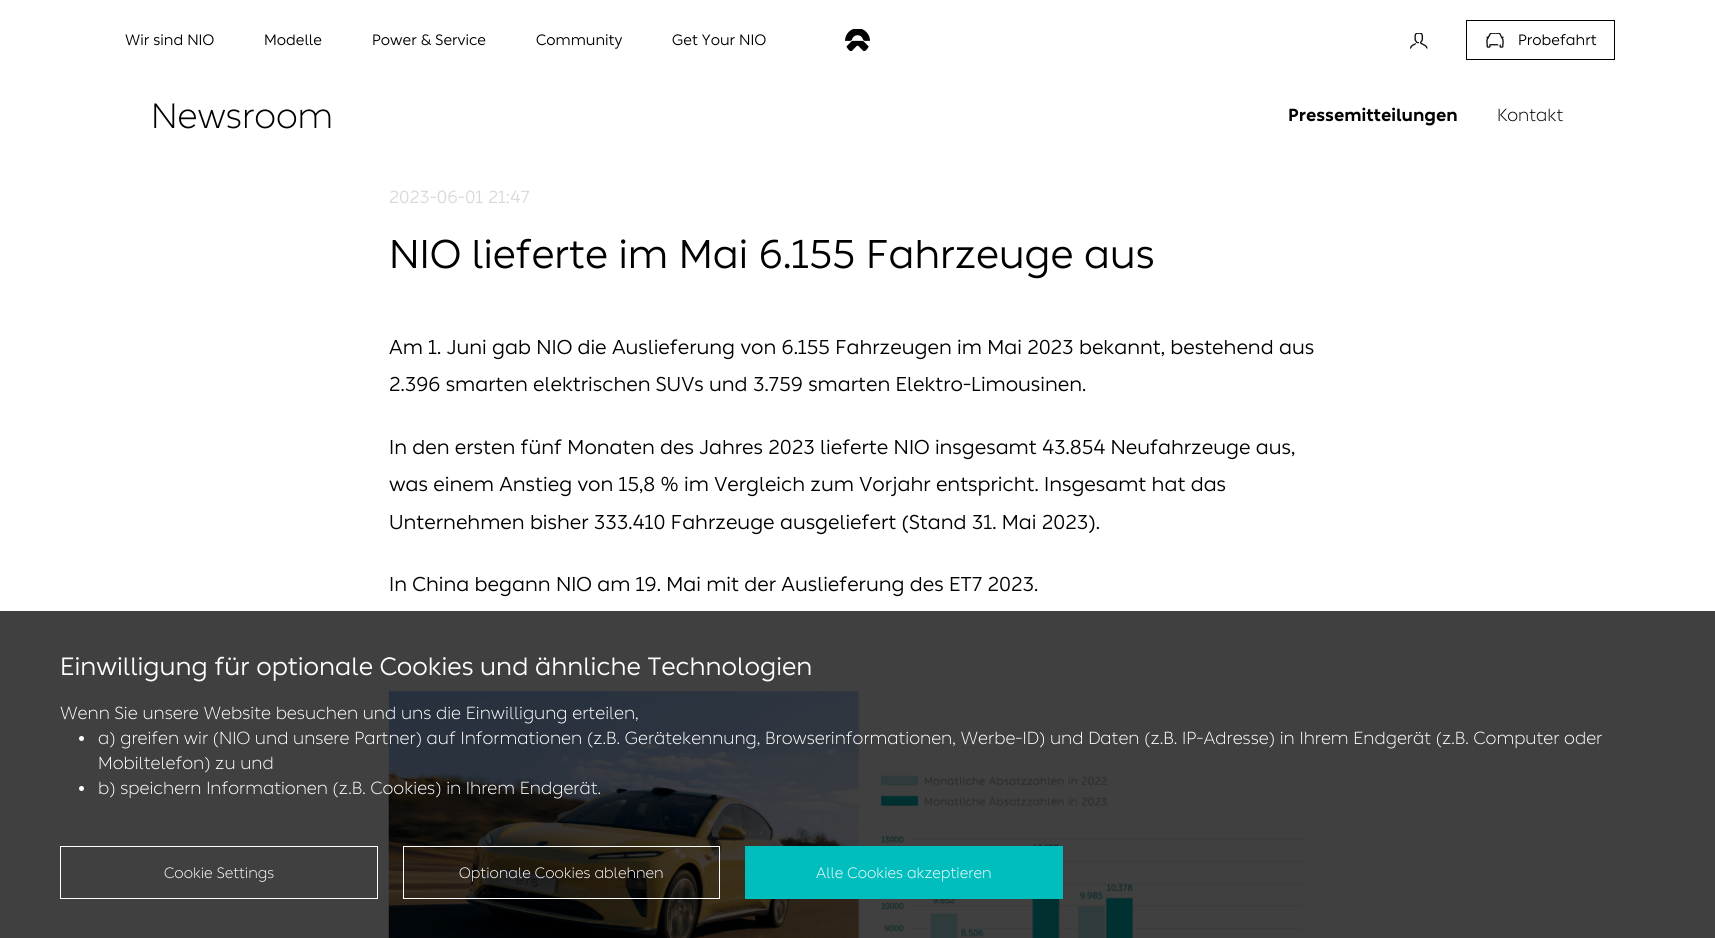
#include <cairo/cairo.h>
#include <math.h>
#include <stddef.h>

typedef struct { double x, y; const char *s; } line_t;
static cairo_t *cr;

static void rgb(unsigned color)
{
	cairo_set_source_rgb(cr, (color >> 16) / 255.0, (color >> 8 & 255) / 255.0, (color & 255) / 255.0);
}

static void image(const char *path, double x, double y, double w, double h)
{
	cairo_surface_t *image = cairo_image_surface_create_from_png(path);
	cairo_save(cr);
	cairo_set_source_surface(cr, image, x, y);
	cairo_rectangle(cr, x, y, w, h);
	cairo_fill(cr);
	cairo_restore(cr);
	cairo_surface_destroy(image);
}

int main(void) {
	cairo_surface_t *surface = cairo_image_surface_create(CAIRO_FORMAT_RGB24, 1715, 938);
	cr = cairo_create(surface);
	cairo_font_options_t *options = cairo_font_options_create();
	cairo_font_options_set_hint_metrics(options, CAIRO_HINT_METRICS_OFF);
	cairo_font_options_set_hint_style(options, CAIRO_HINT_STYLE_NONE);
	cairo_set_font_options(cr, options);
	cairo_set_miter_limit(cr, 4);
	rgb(0xffffff);
	cairo_paint(cr);
	rgb(0x404040);
	cairo_rectangle(cr, 0, 611, 1715, 327);
	cairo_fill(cr);
	image("img/1.png", 845, 29, 25, 22);
	image("img/2.png", 1410, 33, 18, 16);
	cairo_rectangle(cr, 1466.5, 20.5, 148, 39);
	rgb(0x000000);
	cairo_set_line_width(cr, 1);
	cairo_stroke(cr);
	image("img/3.png", 1486, 33, 18, 15);
	image("img/4.png", 388, 691, 914, 247);
	rgb(0xffffff);
	cairo_arc(cr, 81.5, 738.5, 2.5, 0, 2 * M_PI);
	cairo_fill(cr);
	cairo_arc(cr, 81.5, 788.5, 2.5, 0, 2 * M_PI);
	cairo_fill(cr);
	cairo_rectangle(cr, 60.5, 846.5, 317, 52);
	cairo_stroke(cr);
	cairo_rectangle(cr, 403.5, 846.5, 316, 52);
	cairo_stroke(cr);
	rgb(0x00bebe);
	cairo_rectangle(cr, 745, 846, 318, 53);
	cairo_fill(cr);
	cairo_select_font_face(cr, "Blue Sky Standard", CAIRO_FONT_SLANT_NORMAL, CAIRO_FONT_WEIGHT_NORMAL);
	cairo_set_font_size(cr, 15);
	rgb(0x000000);
	{
		static const line_t items[] = {
			{125, 45, "Wir sind NIO"},
			{264, 45, "Modelle"},
			{372, 45, "Power & Service"},
			{536, 45, "Community"},
			{672, 45, "Get Your NIO"},
			{1518, 45, "Probefahrt"},
		};
		for (size_t i = 0; i < sizeof items / sizeof *items; i++) {
			cairo_move_to(cr, items[i].x, items[i].y);
			cairo_show_text(cr, items[i].s);
		}
	}
	cairo_select_font_face(cr, "Blue Sky Standard Light", CAIRO_FONT_SLANT_NORMAL, CAIRO_FONT_WEIGHT_NORMAL);
	cairo_set_font_size(cr, 35);
	cairo_move_to(cr, 151, 128);
	cairo_show_text(cr, "Newsroom");
	cairo_select_font_face(cr, "Blue Sky Standard", CAIRO_FONT_SLANT_NORMAL, CAIRO_FONT_WEIGHT_BOLD);
	cairo_set_font_size(cr, 17.5);
	cairo_move_to(cr, 1288, 121);
	cairo_show_text(cr, "Pressemitteilungen");
	cairo_select_font_face(cr, "Blue Sky Standard Light", CAIRO_FONT_SLANT_NORMAL, CAIRO_FONT_WEIGHT_NORMAL);
	cairo_move_to(cr, 1497, 121);
	cairo_show_text(cr, "Kontakt");
	cairo_select_font_face(cr, "Blue Sky Standard", CAIRO_FONT_SLANT_NORMAL, CAIRO_FONT_WEIGHT_NORMAL);
	rgb(0xd8d8d8);
	cairo_move_to(cr, 389, 203);
	cairo_show_text(cr, "2023-06-01 21:47");
	cairo_set_font_size(cr, 40);
	rgb(0x000000);
	cairo_move_to(cr, 389, 268);
	cairo_show_text(cr, "NIO lieferte im Mai 6.155 Fahrzeuge aus");
	cairo_set_font_size(cr, 20);
	{
		static const line_t items[] = {
			{389, 354, "Am 1. Juni gab NIO die Auslieferung von 6.155 Fahrzeugen im Mai 2023 bekannt, bestehend aus"},
			{389, 391, "2.396 smarten elektrischen SUVs und 3.759 smarten Elektro-Limousinen."},
			{389, 454, "In den ersten fünf Monaten des Jahres 2023 lieferte NIO insgesamt 43.854 Neufahrzeuge aus,"},
			{389, 491, "was einem Anstieg von 15,8 % im Vergleich zum Vorjahr entspricht. Insgesamt hat das"},
			{389, 529, "Unternehmen bisher 333.410 Fahrzeuge ausgeliefert (Stand 31. Mai 2023)."},
			{389, 591, "In China begann NIO am 19. Mai mit der Auslieferung des ET7 2023."},
		};
		for (size_t i = 0; i < sizeof items / sizeof *items; i++) {
			cairo_move_to(cr, items[i].x, items[i].y);
			cairo_show_text(cr, items[i].s);
		}
	}
	cairo_set_font_size(cr, 25);
	rgb(0xffffff);
	cairo_move_to(cr, 60, 675);
	cairo_show_text(cr, "Einwilligung für optionale Cookies und ähnliche Technologien");
	cairo_select_font_face(cr, "Blue Sky Standard Light", CAIRO_FONT_SLANT_NORMAL, CAIRO_FONT_WEIGHT_NORMAL);
	cairo_set_font_size(cr, 17.5);
	{
		static const line_t items[] = {
			{60, 719, "Wenn Sie unsere Website besuchen und uns die Einwilligung erteilen,"},
			{98, 744, "a) greifen wir (NIO und unsere Partner) auf Informationen (z.B. Gerätekennung, Browserinformationen, Werbe-ID) und Daten (z.B. IP-Adresse) in Ihrem Endgerät (z.B. Computer oder"},
			{98, 769, "Mobiltelefon) zu und"},
			{98, 794, "b) speichern Informationen (z.B. Cookies) in Ihrem Endgerät."},
		};
		for (size_t i = 0; i < sizeof items / sizeof *items; i++) {
			cairo_move_to(cr, items[i].x, items[i].y);
			cairo_show_text(cr, items[i].s);
		}
	}
	cairo_set_font_size(cr, 15);
	{
		static const line_t items[] = {
			{164, 878, "Cookie Settings"},
			{459, 878, "Optionale Cookies ablehnen"},
			{816, 878, "Alle Cookies akzeptieren"},
		};
		for (size_t i = 0; i < sizeof items / sizeof *items; i++) {
			cairo_move_to(cr, items[i].x, items[i].y);
			cairo_show_text(cr, items[i].s);
		}
	}
	cairo_surface_write_to_png(surface, "page.png");
	cairo_font_options_destroy(options);
	cairo_destroy(cr);
	cairo_surface_destroy(surface);
	return 0;
}
